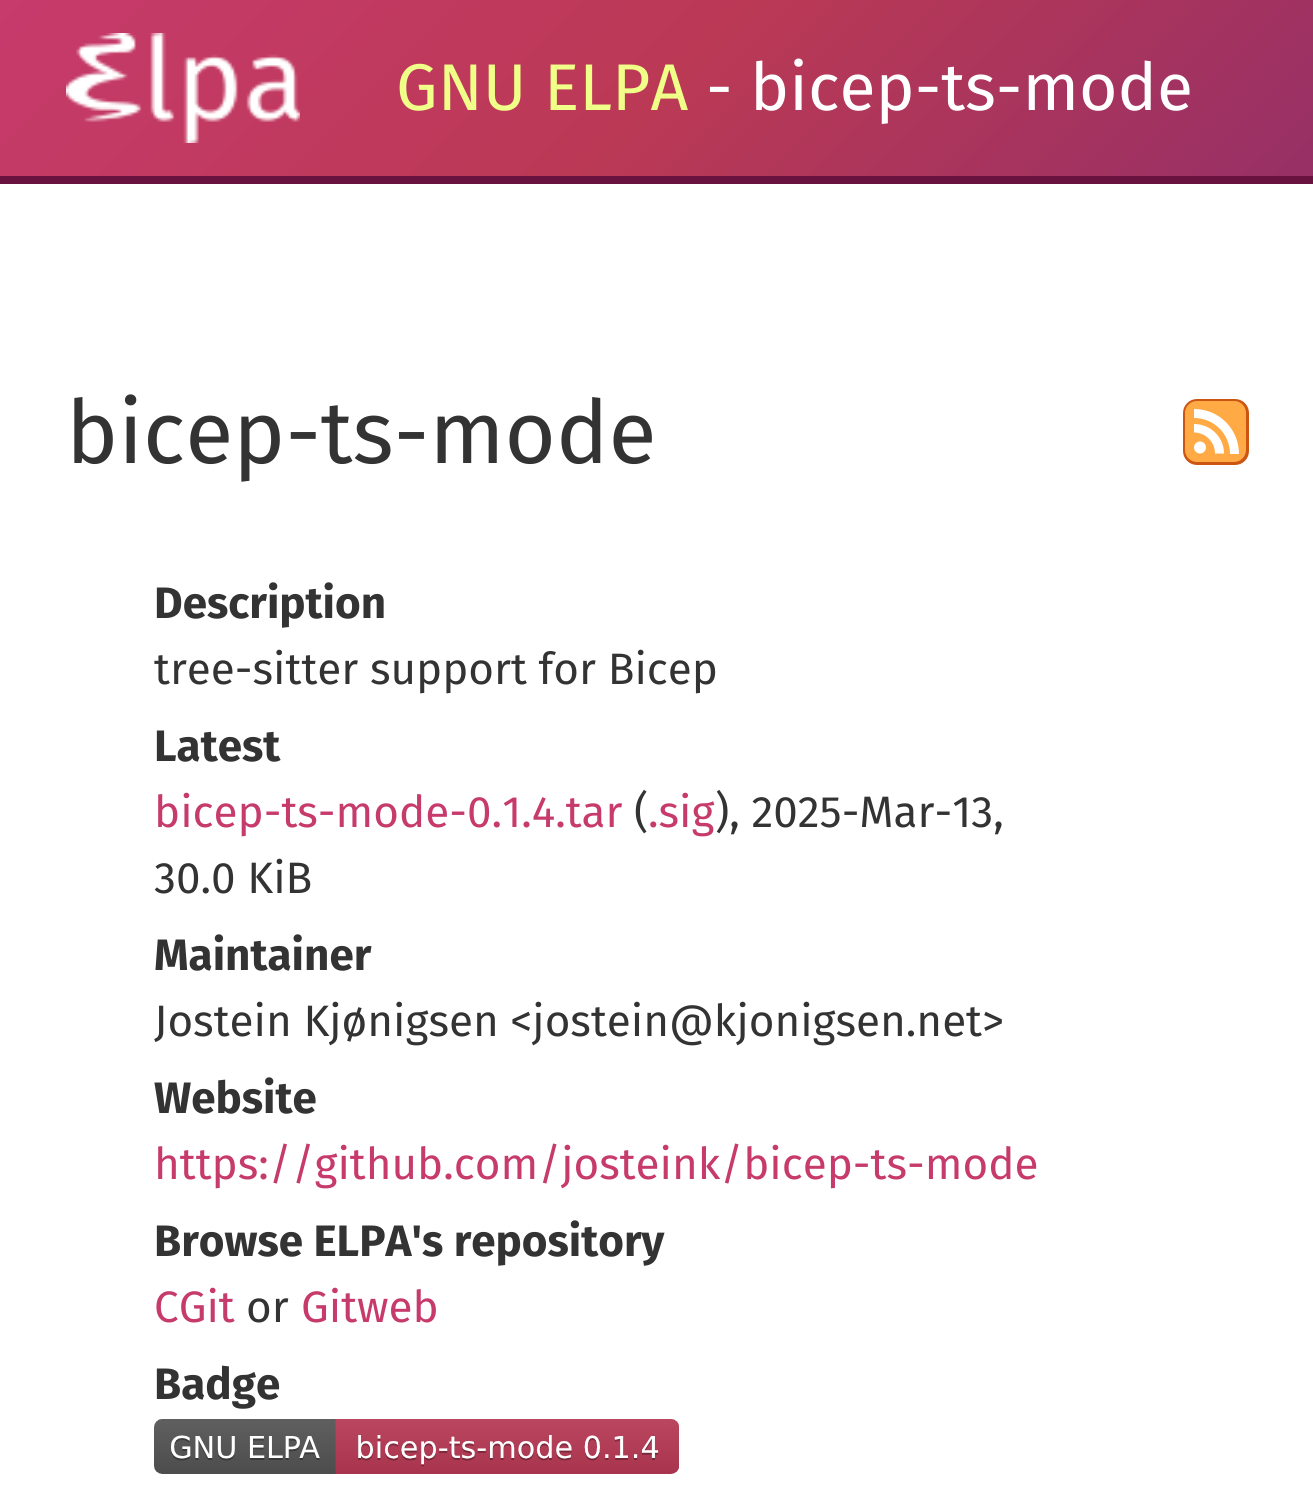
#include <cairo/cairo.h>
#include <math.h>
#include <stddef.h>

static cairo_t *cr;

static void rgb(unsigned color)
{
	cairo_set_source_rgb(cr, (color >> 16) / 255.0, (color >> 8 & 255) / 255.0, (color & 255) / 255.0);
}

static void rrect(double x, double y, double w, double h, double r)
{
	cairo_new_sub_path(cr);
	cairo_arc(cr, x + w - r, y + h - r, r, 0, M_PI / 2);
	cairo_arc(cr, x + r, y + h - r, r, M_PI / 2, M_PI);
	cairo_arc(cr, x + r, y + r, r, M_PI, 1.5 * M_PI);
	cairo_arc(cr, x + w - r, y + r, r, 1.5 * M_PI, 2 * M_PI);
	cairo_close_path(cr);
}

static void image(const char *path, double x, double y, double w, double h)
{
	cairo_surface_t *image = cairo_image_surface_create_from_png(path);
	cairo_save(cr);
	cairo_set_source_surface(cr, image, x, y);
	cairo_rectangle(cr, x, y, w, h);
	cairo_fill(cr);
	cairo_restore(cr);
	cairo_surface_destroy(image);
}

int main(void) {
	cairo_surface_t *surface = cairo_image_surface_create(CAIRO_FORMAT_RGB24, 1313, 1493);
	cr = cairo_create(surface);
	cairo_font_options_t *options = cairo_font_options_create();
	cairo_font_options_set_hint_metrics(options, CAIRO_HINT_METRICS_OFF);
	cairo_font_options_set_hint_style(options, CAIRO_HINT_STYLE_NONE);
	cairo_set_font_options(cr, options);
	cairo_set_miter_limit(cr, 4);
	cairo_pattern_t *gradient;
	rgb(0xffffff);
	cairo_paint(cr);
	gradient = cairo_pattern_create_linear(285, -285, 1030, 461);
	cairo_pattern_add_color_stop_rgba(gradient, 0, 0.78, 0.227, 0.424, 1);
	cairo_pattern_add_color_stop_rgba(gradient, 0.5, 0.733, 0.224, 0.333, 1);
	cairo_pattern_add_color_stop_rgba(gradient, 1, 0.592, 0.188, 0.4, 1);
	cairo_set_source(cr, gradient);
	cairo_pattern_destroy(gradient);
	cairo_rectangle(cr, 0, 0, 1313, 176);
	cairo_fill(cr);
	rgb(0x691240);
	cairo_rectangle(cr, 0, 176, 1313, 8);
	cairo_fill(cr);
	image("img/1.png", 66, 33, 234, 110);
	rgb(0xcc5511);
	rrect(1183, 399, 66, 66, 14);
	cairo_fill(cr);
	rgb(0xffaa44);
	rrect(1185, 401, 61, 61, 12);
	cairo_fill(cr);
	rgb(0xffffff);
	cairo_arc(cr, 1200, 447.5, 6, 0, 2 * M_PI);
	cairo_fill(cr);
	cairo_new_path(cr);
	cairo_move_to(cr, 1224, 453.5);
	cairo_line_to(cr, 1215, 453.5);
	cairo_curve_to(cr, 1215, 442, 1205.5, 432.5, 1194, 432.5);
	cairo_line_to(cr, 1194, 424);
	cairo_curve_to(cr, 1210.5, 424, 1224, 437, 1224, 453.5);
	cairo_close_path(cr);
	cairo_fill(cr);
	cairo_new_path(cr);
	cairo_move_to(cr, 1230, 454);
	cairo_curve_to(cr, 1230, 434, 1214, 418, 1194, 418);
	cairo_line_to(cr, 1194, 409);
	cairo_curve_to(cr, 1219, 409, 1239, 429, 1239, 454);
	cairo_close_path(cr);
	cairo_fill(cr);
	image("img/2.png", 154, 1419, 525, 55);
	cairo_select_font_face(cr, "Fira Sans", CAIRO_FONT_SLANT_NORMAL, CAIRO_FONT_WEIGHT_NORMAL);
	cairo_set_font_size(cr, 66);
	rgb(0xf0ff87);
	cairo_move_to(cr, 396, 110);
	cairo_show_text(cr, "GNU ELPA");
	rgb(0xffffff);
	cairo_move_to(cr, 706, 110);
	cairo_show_text(cr, "- bicep-ts-mode");
	cairo_set_font_size(cr, 88);
	rgb(0x333333);
	cairo_move_to(cr, 66, 463);
	cairo_show_text(cr, "bicep-ts-mode");
	cairo_select_font_face(cr, "Fira Sans", CAIRO_FONT_SLANT_NORMAL, CAIRO_FONT_WEIGHT_BOLD);
	cairo_set_font_size(cr, 44);
	cairo_move_to(cr, 154, 618);
	cairo_show_text(cr, "Description");
	cairo_select_font_face(cr, "Fira Sans", CAIRO_FONT_SLANT_NORMAL, CAIRO_FONT_WEIGHT_NORMAL);
	cairo_move_to(cr, 154, 684);
	cairo_show_text(cr, "tree-sitter support for Bicep");
	cairo_select_font_face(cr, "Fira Sans", CAIRO_FONT_SLANT_NORMAL, CAIRO_FONT_WEIGHT_BOLD);
	cairo_move_to(cr, 154, 761);
	cairo_show_text(cr, "Latest");
	cairo_select_font_face(cr, "Fira Sans", CAIRO_FONT_SLANT_NORMAL, CAIRO_FONT_WEIGHT_NORMAL);
	rgb(0xc73a6c);
	cairo_move_to(cr, 154, 827);
	cairo_show_text(cr, "bicep-ts-mode-0.1.4.tar");
	rgb(0x333333);
	cairo_move_to(cr, 634, 827);
	cairo_show_text(cr, "(");
	rgb(0xc73a6c);
	cairo_move_to(cr, 648, 827);
	cairo_show_text(cr, ".sig");
	rgb(0x333333);
	cairo_move_to(cr, 715, 827);
	cairo_show_text(cr, "), 2025-Mar-13,");
	cairo_move_to(cr, 154, 893);
	cairo_show_text(cr, "30.0 KiB");
	cairo_select_font_face(cr, "Fira Sans", CAIRO_FONT_SLANT_NORMAL, CAIRO_FONT_WEIGHT_BOLD);
	cairo_move_to(cr, 154, 970);
	cairo_show_text(cr, "Maintainer");
	cairo_select_font_face(cr, "Fira Sans", CAIRO_FONT_SLANT_NORMAL, CAIRO_FONT_WEIGHT_NORMAL);
	cairo_move_to(cr, 154, 1036);
	cairo_show_text(cr, "Jostein Kjønigsen <jostein@kjonigsen.net>");
	cairo_select_font_face(cr, "Fira Sans", CAIRO_FONT_SLANT_NORMAL, CAIRO_FONT_WEIGHT_BOLD);
	cairo_move_to(cr, 154, 1113);
	cairo_show_text(cr, "Website");
	cairo_select_font_face(cr, "Fira Sans", CAIRO_FONT_SLANT_NORMAL, CAIRO_FONT_WEIGHT_NORMAL);
	rgb(0xc73a6c);
	cairo_move_to(cr, 154, 1179);
	cairo_show_text(cr, "https://github.com/josteink/bicep-ts-mode");
	cairo_select_font_face(cr, "Fira Sans", CAIRO_FONT_SLANT_NORMAL, CAIRO_FONT_WEIGHT_BOLD);
	rgb(0x333333);
	cairo_move_to(cr, 154, 1256);
	cairo_show_text(cr, "Browse ELPA's repository");
	cairo_select_font_face(cr, "Fira Sans", CAIRO_FONT_SLANT_NORMAL, CAIRO_FONT_WEIGHT_NORMAL);
	rgb(0xc73a6c);
	cairo_move_to(cr, 154, 1322);
	cairo_show_text(cr, "CGit");
	rgb(0x333333);
	cairo_move_to(cr, 246, 1322);
	cairo_show_text(cr, "or");
	rgb(0xc73a6c);
	cairo_move_to(cr, 301, 1322);
	cairo_show_text(cr, "Gitweb");
	cairo_select_font_face(cr, "Fira Sans", CAIRO_FONT_SLANT_NORMAL, CAIRO_FONT_WEIGHT_BOLD);
	rgb(0x333333);
	cairo_move_to(cr, 154, 1399);
	cairo_show_text(cr, "Badge");
	cairo_surface_write_to_png(surface, "page.png");
	cairo_font_options_destroy(options);
	cairo_destroy(cr);
	cairo_surface_destroy(surface);
	return 0;
}
